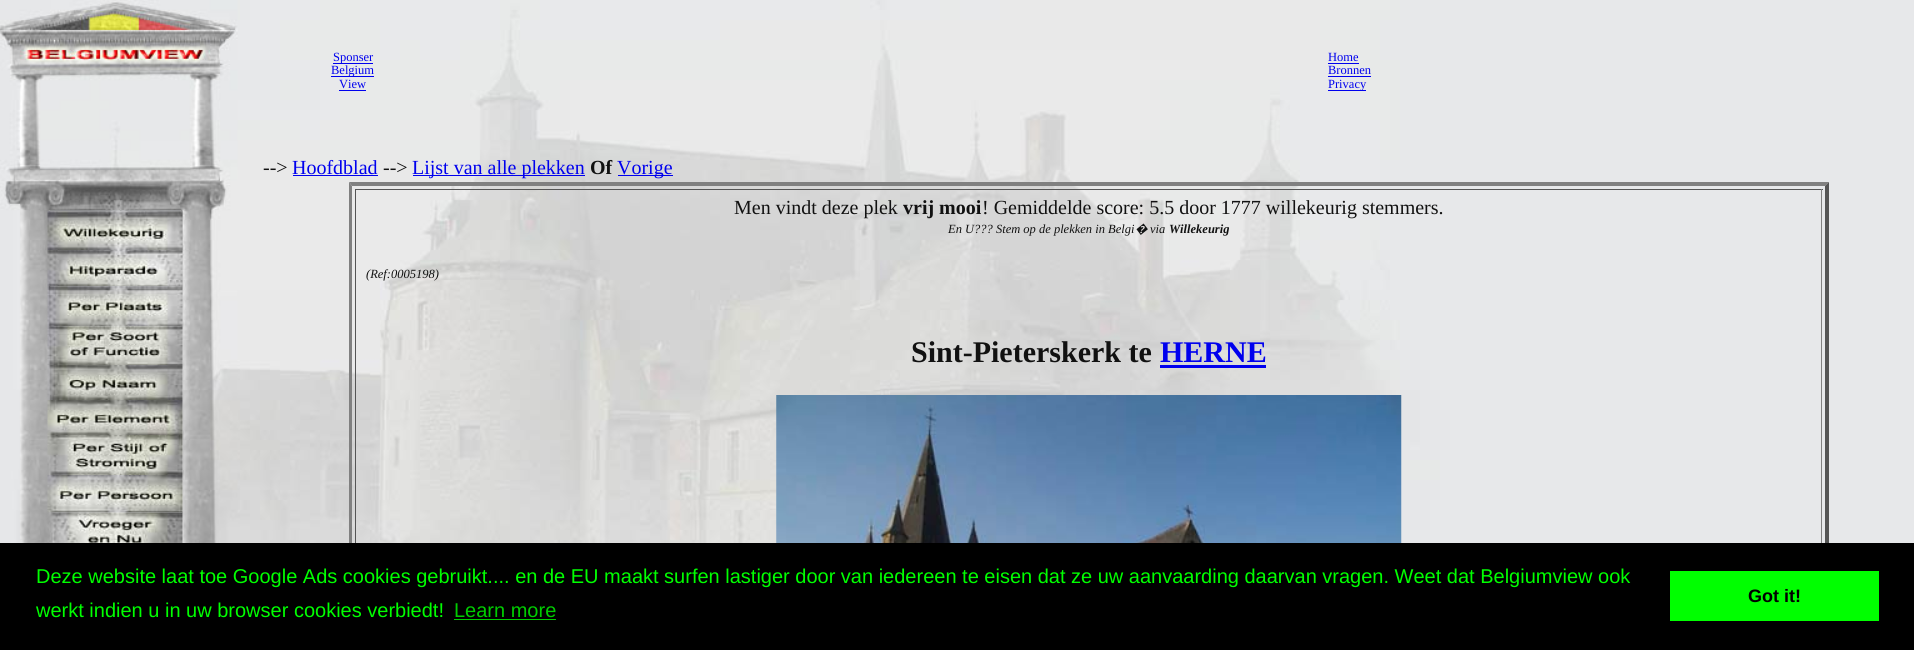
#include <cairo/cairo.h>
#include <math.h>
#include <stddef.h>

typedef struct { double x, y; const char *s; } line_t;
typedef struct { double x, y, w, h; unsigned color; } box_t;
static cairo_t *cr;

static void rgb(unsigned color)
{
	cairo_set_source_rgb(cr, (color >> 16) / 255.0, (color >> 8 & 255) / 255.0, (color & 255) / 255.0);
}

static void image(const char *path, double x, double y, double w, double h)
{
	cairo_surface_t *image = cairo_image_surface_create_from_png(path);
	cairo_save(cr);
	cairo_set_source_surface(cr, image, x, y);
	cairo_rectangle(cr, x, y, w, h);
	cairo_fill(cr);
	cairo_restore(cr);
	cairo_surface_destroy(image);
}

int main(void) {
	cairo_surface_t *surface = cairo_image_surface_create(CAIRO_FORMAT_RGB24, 1914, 650);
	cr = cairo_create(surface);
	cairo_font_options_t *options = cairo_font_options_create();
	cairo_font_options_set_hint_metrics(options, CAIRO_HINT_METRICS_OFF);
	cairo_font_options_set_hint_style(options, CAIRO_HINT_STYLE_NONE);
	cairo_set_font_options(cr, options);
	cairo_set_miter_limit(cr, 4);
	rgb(0xffffff);
	cairo_paint(cr);
	image("img/1.png", 237, 0, 1677, 543);
	image("img/2.png", 0, 0, 238, 543);
	{
		static const box_t items[] = {
			{333, 63, 40, 1, 0x0000ee},
			{331, 76, 43, 1, 0x0000ee},
			{339, 90, 27, 1, 0x0000ee},
			{1328, 63, 31, 1, 0x0000ee},
			{1328, 76, 43, 1, 0x0000ee},
			{1328, 90, 38, 1, 0x0000ee},
		};
		for (size_t i = 0; i < sizeof items / sizeof *items; i++) {
			rgb(items[i].color);
			cairo_rectangle(cr, items[i].x, items[i].y, items[i].w, items[i].h);
			cairo_fill(cr);
		}
	}
	image("img/3.png", 47, 211, 136, 39);
	{
		static const box_t items[] = {
			{293, 175, 85, 1, 0x0000ee},
			{413, 175, 172, 1, 0x0000ee},
			{618, 175, 55, 1, 0x0000ee},
		};
		for (size_t i = 0; i < sizeof items / sizeof *items; i++) {
			rgb(items[i].color);
			cairo_rectangle(cr, items[i].x, items[i].y, items[i].w, items[i].h);
			cairo_fill(cr);
		}
	}
	rgb(0x808080);
	cairo_new_path(cr);
	cairo_move_to(cr, 349, 182);
	cairo_line_to(cr, 1829, 182);
	cairo_line_to(cr, 1825, 186);
	cairo_line_to(cr, 352, 186);
	cairo_close_path(cr);
	cairo_fill(cr);
	rgb(0x555555);
	cairo_new_path(cr);
	cairo_move_to(cr, 1829, 182);
	cairo_line_to(cr, 1829, 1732);
	cairo_line_to(cr, 1825, 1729);
	cairo_line_to(cr, 1825, 186);
	cairo_close_path(cr);
	cairo_fill(cr);
	rgb(0x808080);
	cairo_new_path(cr);
	cairo_move_to(cr, 349, 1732);
	cairo_line_to(cr, 349, 182);
	cairo_line_to(cr, 352, 186);
	cairo_line_to(cr, 352, 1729);
	cairo_close_path(cr);
	cairo_fill(cr);
	{
		static const box_t items[] = {
			{355, 189, 1468, 1, 0x555555},
			{1821, 189, 1, 354, 0x808080},
			{355, 189, 1, 354, 0x555555},
			{1160, 365, 106, 3, 0x0000ee},
		};
		for (size_t i = 0; i < sizeof items / sizeof *items; i++) {
			rgb(items[i].color);
			cairo_rectangle(cr, items[i].x, items[i].y, items[i].w, items[i].h);
			cairo_fill(cr);
		}
	}
	image("img/4.png", 776, 395, 626, 148);
	image("img/5.png", 47, 250, 136, 37);
	image("img/6.png", 47, 286, 136, 41);
	image("img/7.png", 47, 326, 136, 39);
	image("img/8.png", 47, 365, 136, 35);
	image("img/9.png", 47, 400, 136, 35);
	image("img/10.png", 47, 435, 136, 40);
	image("img/11.png", 47, 475, 136, 38);
	image("img/12.png", 47, 512, 136, 31);
	{
		static const box_t items[] = {
			{0, 543, 1914, 107, 0x000000},
			{454, 619, 102, 1, 0x00cc00},
			{1670, 571, 209, 50, 0x00ff00},
		};
		for (size_t i = 0; i < sizeof items / sizeof *items; i++) {
			rgb(items[i].color);
			cairo_rectangle(cr, items[i].x, items[i].y, items[i].w, items[i].h);
			cairo_fill(cr);
		}
	}
	cairo_select_font_face(cr, "Liberation Serif", CAIRO_FONT_SLANT_NORMAL, CAIRO_FONT_WEIGHT_NORMAL);
	cairo_set_font_size(cr, 12.5);
	rgb(0x0000ee);
	{
		static const line_t items[] = {
			{333, 61, "Sponser"},
			{331, 74, "Belgium"},
			{339, 88, "View"},
			{1328, 61, "Home"},
			{1328, 74, "Bronnen"},
			{1328, 88, "Privacy"},
		};
		for (size_t i = 0; i < sizeof items / sizeof *items; i++) {
			cairo_move_to(cr, items[i].x, items[i].y);
			cairo_show_text(cr, items[i].s);
		}
	}
	cairo_set_font_size(cr, 20);
	rgb(0x111111);
	cairo_move_to(cr, 263, 174);
	cairo_show_text(cr, "-->");
	rgb(0x0000ee);
	cairo_move_to(cr, 292, 174);
	cairo_show_text(cr, "Hoofdblad");
	rgb(0x111111);
	cairo_move_to(cr, 383, 174);
	cairo_show_text(cr, "-->");
	rgb(0x0000ee);
	cairo_move_to(cr, 412, 174);
	cairo_show_text(cr, "Lijst van alle plekken");
	cairo_select_font_face(cr, "Liberation Serif", CAIRO_FONT_SLANT_NORMAL, CAIRO_FONT_WEIGHT_BOLD);
	rgb(0x111111);
	cairo_move_to(cr, 590, 174);
	cairo_show_text(cr, "Of");
	cairo_select_font_face(cr, "Liberation Serif", CAIRO_FONT_SLANT_NORMAL, CAIRO_FONT_WEIGHT_NORMAL);
	rgb(0x0000ee);
	cairo_move_to(cr, 617, 174);
	cairo_show_text(cr, "Vorige");
	rgb(0x111111);
	cairo_move_to(cr, 734, 214);
	cairo_show_text(cr, "Men vindt deze plek");
	cairo_select_font_face(cr, "Liberation Serif", CAIRO_FONT_SLANT_NORMAL, CAIRO_FONT_WEIGHT_BOLD);
	cairo_move_to(cr, 903, 214);
	cairo_show_text(cr, "vrij mooi");
	cairo_select_font_face(cr, "Liberation Serif", CAIRO_FONT_SLANT_NORMAL, CAIRO_FONT_WEIGHT_NORMAL);
	cairo_move_to(cr, 982, 214);
	cairo_show_text(cr, "! Gemiddelde score: 5.5 door 1777 willekeurig stemmers.");
	cairo_select_font_face(cr, "Liberation Serif", CAIRO_FONT_SLANT_ITALIC, CAIRO_FONT_WEIGHT_NORMAL);
	cairo_set_font_size(cr, 12.5);
	cairo_move_to(cr, 948, 233);
	cairo_show_text(cr, "En U?\077? Stem op de plekken in Belgi");
	cairo_select_font_face(cr, "Noto Sans", CAIRO_FONT_SLANT_ITALIC, CAIRO_FONT_WEIGHT_NORMAL);
	cairo_move_to(cr, 1135, 233);
	cairo_show_text(cr, "�");
	cairo_select_font_face(cr, "Liberation Serif", CAIRO_FONT_SLANT_ITALIC, CAIRO_FONT_WEIGHT_NORMAL);
	cairo_move_to(cr, 1150, 233);
	cairo_show_text(cr, "via");
	cairo_select_font_face(cr, "Liberation Serif", CAIRO_FONT_SLANT_ITALIC, CAIRO_FONT_WEIGHT_BOLD);
	cairo_move_to(cr, 1169, 233);
	cairo_show_text(cr, "Willekeurig");
	cairo_select_font_face(cr, "Liberation Serif", CAIRO_FONT_SLANT_ITALIC, CAIRO_FONT_WEIGHT_NORMAL);
	cairo_move_to(cr, 366, 278);
	cairo_show_text(cr, "(Ref:0005198)");
	cairo_select_font_face(cr, "Liberation Serif", CAIRO_FONT_SLANT_NORMAL, CAIRO_FONT_WEIGHT_BOLD);
	cairo_set_font_size(cr, 30);
	cairo_move_to(cr, 911, 362);
	cairo_show_text(cr, "Sint-Pieterskerk te");
	rgb(0x0000ee);
	cairo_move_to(cr, 1160, 362);
	cairo_show_text(cr, "HERNE");
	cairo_select_font_face(cr, "Liberation Sans", CAIRO_FONT_SLANT_NORMAL, CAIRO_FONT_WEIGHT_NORMAL);
	cairo_set_font_size(cr, 20);
	rgb(0x00ff00);
	cairo_move_to(cr, 36, 583);
	cairo_show_text(cr, "Deze website laat toe Google Ads cookies gebruikt.... en de EU maakt surfen lastiger door van iedereen te eisen dat ze uw aanvaarding daarvan vragen. Weet dat Belgiumview ook");
	cairo_move_to(cr, 36, 617);
	cairo_show_text(cr, "werkt indien u in uw browser cookies verbiedt!");
	rgb(0x00cc00);
	cairo_move_to(cr, 454, 617);
	cairo_show_text(cr, "Learn more");
	cairo_select_font_face(cr, "Liberation Sans", CAIRO_FONT_SLANT_NORMAL, CAIRO_FONT_WEIGHT_BOLD);
	cairo_set_font_size(cr, 18);
	rgb(0x000000);
	cairo_move_to(cr, 1748, 602);
	cairo_show_text(cr, "Got it!");
	cairo_surface_write_to_png(surface, "page.png");
	cairo_font_options_destroy(options);
	cairo_destroy(cr);
	cairo_surface_destroy(surface);
	return 0;
}
